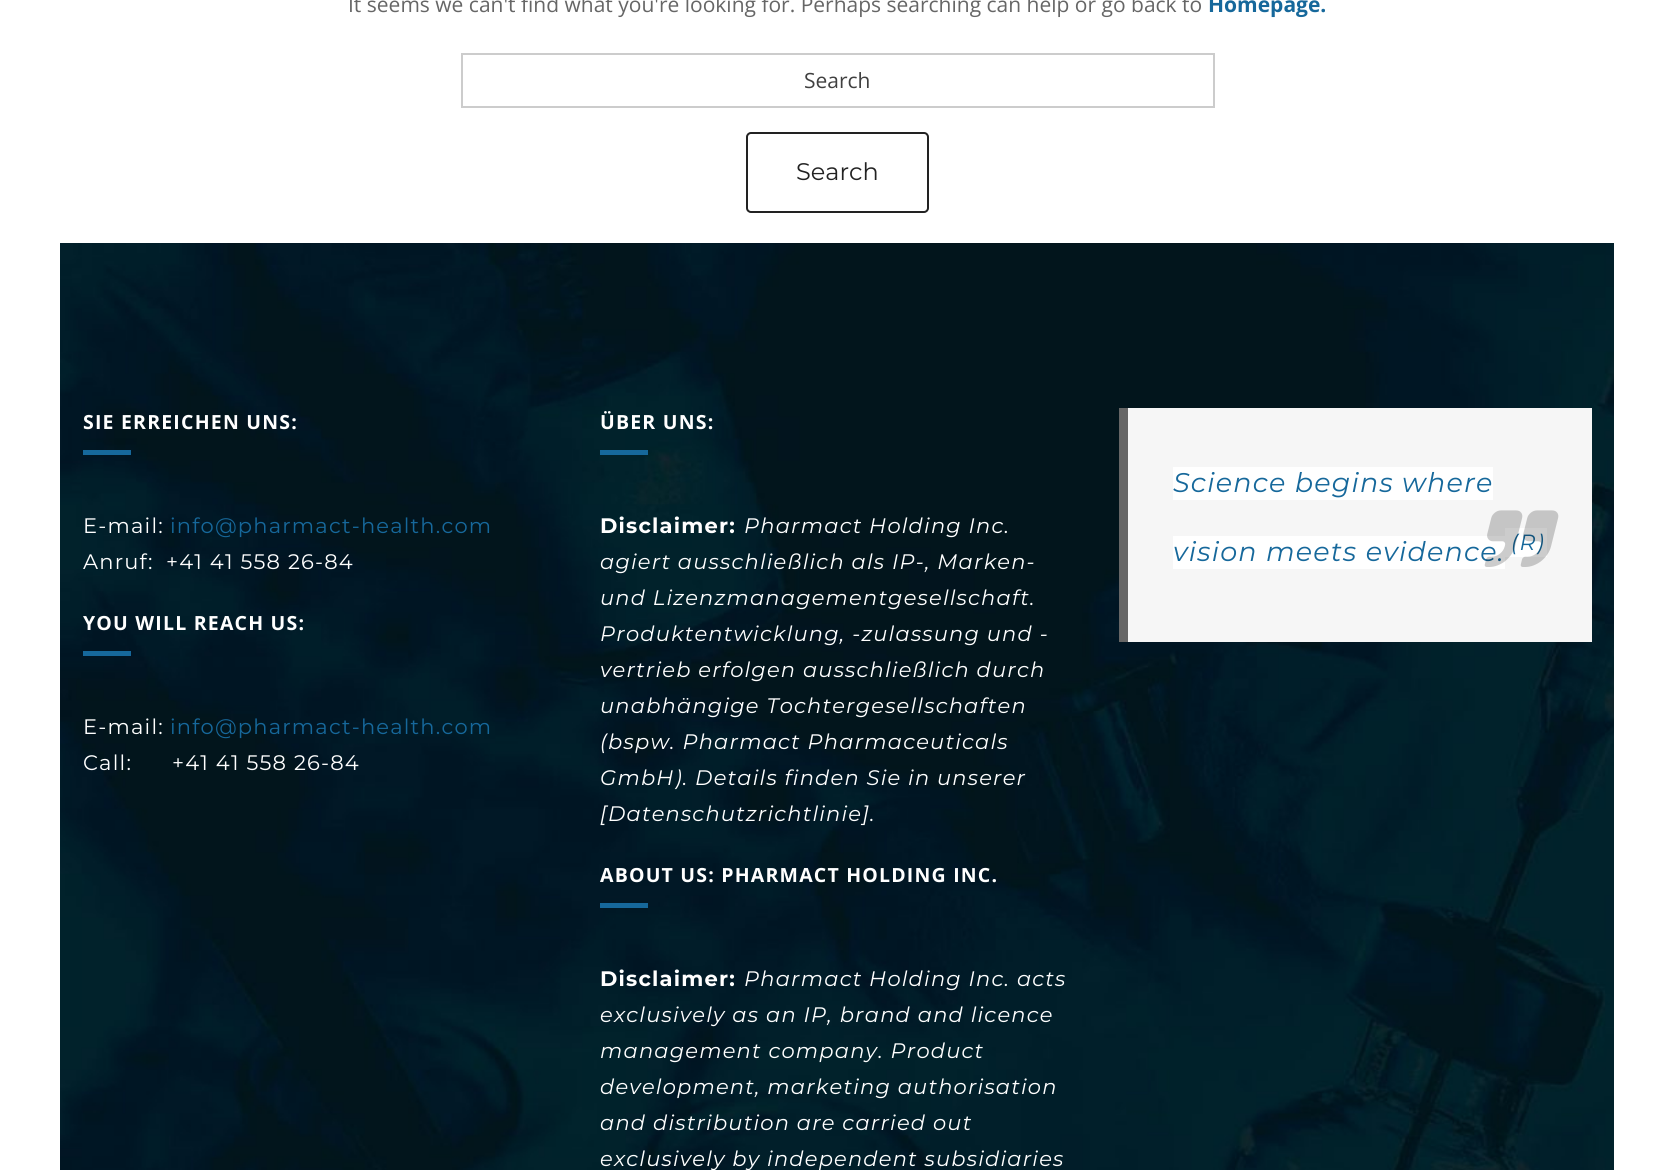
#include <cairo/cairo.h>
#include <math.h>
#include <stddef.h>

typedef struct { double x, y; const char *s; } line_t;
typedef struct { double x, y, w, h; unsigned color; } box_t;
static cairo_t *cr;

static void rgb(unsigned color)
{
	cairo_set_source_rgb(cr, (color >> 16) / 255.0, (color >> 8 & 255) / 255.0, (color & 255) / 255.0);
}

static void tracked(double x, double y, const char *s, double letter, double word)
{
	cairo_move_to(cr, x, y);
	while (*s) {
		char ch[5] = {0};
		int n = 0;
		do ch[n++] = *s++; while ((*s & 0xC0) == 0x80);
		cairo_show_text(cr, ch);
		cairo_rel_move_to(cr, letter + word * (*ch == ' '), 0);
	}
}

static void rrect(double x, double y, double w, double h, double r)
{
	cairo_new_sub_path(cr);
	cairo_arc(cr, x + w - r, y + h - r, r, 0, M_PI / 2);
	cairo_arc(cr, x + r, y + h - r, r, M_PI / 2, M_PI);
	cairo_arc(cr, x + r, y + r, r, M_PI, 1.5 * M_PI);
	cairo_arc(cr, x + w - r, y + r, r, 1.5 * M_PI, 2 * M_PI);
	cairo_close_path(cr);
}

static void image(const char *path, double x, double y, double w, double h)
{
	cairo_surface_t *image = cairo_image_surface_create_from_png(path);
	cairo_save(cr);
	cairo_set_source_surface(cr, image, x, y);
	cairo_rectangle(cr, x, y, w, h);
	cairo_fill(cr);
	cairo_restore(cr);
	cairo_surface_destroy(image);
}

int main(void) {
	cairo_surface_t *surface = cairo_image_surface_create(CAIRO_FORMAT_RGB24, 1674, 1170);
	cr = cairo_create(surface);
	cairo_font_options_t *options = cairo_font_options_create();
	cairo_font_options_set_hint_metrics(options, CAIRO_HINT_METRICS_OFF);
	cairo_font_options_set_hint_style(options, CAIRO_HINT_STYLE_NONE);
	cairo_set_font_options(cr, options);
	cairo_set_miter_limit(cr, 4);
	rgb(0xffffff);
	cairo_paint(cr);
	cairo_rectangle(cr, 462, 54, 752, 53);
	rgb(0xcccccc);
	cairo_stroke(cr);
	rrect(747, 133, 181, 79, 4);
	rgb(0x222222);
	cairo_stroke(cr);
	image("img/1.png", 60, 243, 1554, 927);
	{
		static const box_t items[] = {
			{83, 450, 48, 5, 0x16689b},
			{83, 651, 48, 5, 0x16689b},
			{600, 450, 48, 5, 0x16689b},
			{600, 903, 48, 5, 0x16689b},
			{1128, 408, 464, 234, 0xf6f6f6},
			{1119, 408, 9, 234, 0x666666},
			{1173, 467, 320, 33, 0xffffff},
			{1173, 536, 332, 33, 0xffffff},
			{1505, 528, 42, 29, 0xffffff},
		};
		for (size_t i = 0; i < sizeof items / sizeof *items; i++) {
			rgb(items[i].color);
			cairo_rectangle(cr, items[i].x, items[i].y, items[i].w, items[i].h);
			cairo_fill(cr);
		}
	}
	cairo_select_font_face(cr, "Open Sans", CAIRO_FONT_SLANT_NORMAL, CAIRO_FONT_WEIGHT_NORMAL);
	cairo_set_font_size(cr, 21);
	rgb(0x666666);
	cairo_move_to(cr, 348, 12);
	cairo_show_text(cr, "It seems we can't find what you're looking for. Perhaps searching can help or go back to");
	cairo_select_font_face(cr, "Open Sans", CAIRO_FONT_SLANT_NORMAL, CAIRO_FONT_WEIGHT_BOLD);
	rgb(0x16689b);
	cairo_move_to(cr, 1208, 12);
	cairo_show_text(cr, "Homepage.");
	cairo_select_font_face(cr, "Open Sans", CAIRO_FONT_SLANT_NORMAL, CAIRO_FONT_WEIGHT_NORMAL);
	rgb(0x404040);
	cairo_move_to(cr, 804, 88);
	cairo_show_text(cr, "Search");
	cairo_select_font_face(cr, "Montserrat", CAIRO_FONT_SLANT_NORMAL, CAIRO_FONT_WEIGHT_NORMAL);
	cairo_set_font_size(cr, 24);
	rgb(0x222222);
	cairo_move_to(cr, 796, 180);
	cairo_show_text(cr, "Search");
	cairo_select_font_face(cr, "Open Sans", CAIRO_FONT_SLANT_NORMAL, CAIRO_FONT_WEIGHT_BOLD);
	cairo_set_font_size(cr, 19.5);
	rgb(0xffffff);
	tracked(83, 429, "SIE ERREICHEN UNS:", 1.2, 0);
	cairo_select_font_face(cr, "Montserrat", CAIRO_FONT_SLANT_NORMAL, CAIRO_FONT_WEIGHT_NORMAL);
	cairo_set_font_size(cr, 21);
	tracked(83, 533, "E-mail:", 1.2, 0);
	rgb(0x16689b);
	tracked(170, 533, "info@pharmact-health.com", 1.2, 0);
	rgb(0xffffff);
	tracked(83, 569, "Anruf:", 1.2, 0);
	tracked(166, 569, "+41 41 558 26-84", 1.2, 0);
	cairo_select_font_face(cr, "Open Sans", CAIRO_FONT_SLANT_NORMAL, CAIRO_FONT_WEIGHT_BOLD);
	cairo_set_font_size(cr, 19.5);
	tracked(83, 630, "YOU WILL REACH US:", 1.2, 0);
	cairo_select_font_face(cr, "Montserrat", CAIRO_FONT_SLANT_NORMAL, CAIRO_FONT_WEIGHT_NORMAL);
	cairo_set_font_size(cr, 21);
	tracked(83, 734, "E-mail:", 1.2, 0);
	rgb(0x16689b);
	tracked(170, 734, "info@pharmact-health.com", 1.2, 0);
	rgb(0xffffff);
	tracked(83, 770, "Call:", 1.2, 0);
	tracked(172, 770, "+41 41 558 26-84", 1.2, 0);
	cairo_select_font_face(cr, "Open Sans", CAIRO_FONT_SLANT_NORMAL, CAIRO_FONT_WEIGHT_BOLD);
	cairo_set_font_size(cr, 19.5);
	tracked(600, 429, "ÜBER UNS:", 1.2, 0);
	cairo_select_font_face(cr, "Montserrat", CAIRO_FONT_SLANT_NORMAL, CAIRO_FONT_WEIGHT_BOLD);
	cairo_set_font_size(cr, 21);
	tracked(600, 533, "Disclaimer:", 1.2, 0);
	cairo_select_font_face(cr, "Montserrat", CAIRO_FONT_SLANT_ITALIC, CAIRO_FONT_WEIGHT_NORMAL);
	{
		static const line_t items[] = {
			{744, 533, "Pharmact Holding Inc."},
			{600, 569, "agiert ausschließlich als IP-, Marken-"},
			{600, 605, "und Lizenzmanagementgesellschaft."},
			{600, 641, "Produktentwicklung, -zulassung und -"},
			{600, 677, "vertrieb erfolgen ausschließlich durch"},
			{600, 713, "unabhängige Tochtergesellschaften"},
			{600, 749, "(bspw. Pharmact Pharmaceuticals"},
			{600, 785, "GmbH). Details finden Sie in unserer"},
			{600, 821, "[Datenschutzrichtlinie]."},
		};
		for (size_t i = 0; i < sizeof items / sizeof *items; i++) {
			tracked(items[i].x, items[i].y, items[i].s, 1.2, 0);
		}
	}
	cairo_select_font_face(cr, "Open Sans", CAIRO_FONT_SLANT_NORMAL, CAIRO_FONT_WEIGHT_BOLD);
	cairo_set_font_size(cr, 19.5);
	tracked(600, 882, "ABOUT US: PHARMACT HOLDING INC.", 1.2, 0);
	cairo_select_font_face(cr, "Montserrat", CAIRO_FONT_SLANT_NORMAL, CAIRO_FONT_WEIGHT_BOLD);
	cairo_set_font_size(cr, 21);
	tracked(600, 986, "Disclaimer:", 1.2, 0);
	cairo_select_font_face(cr, "Montserrat", CAIRO_FONT_SLANT_ITALIC, CAIRO_FONT_WEIGHT_NORMAL);
	{
		static const line_t items[] = {
			{744, 986, "Pharmact Holding Inc. acts"},
			{600, 1022, "exclusively as an IP, brand and licence"},
			{600, 1058, "management company. Product"},
			{600, 1094, "development, marketing authorisation"},
			{600, 1130, "and distribution are carried out"},
			{600, 1166, "exclusively by independent subsidiaries"},
		};
		for (size_t i = 0; i < sizeof items / sizeof *items; i++) {
			tracked(items[i].x, items[i].y, items[i].s, 1.2, 0);
		}
	}
	cairo_set_font_size(cr, 27);
	rgb(0x16689b);
	tracked(1173, 492, "Science begins where", 1.2, 0);
	tracked(1173, 561, "vision meets evidence.", 1.2, 0);
	cairo_set_font_size(cr, 22);
	tracked(1511, 550, "(R)", 1.2, 0);
	image("img/2.png", 1484, 510, 75, 57);
	cairo_surface_write_to_png(surface, "page.png");
	cairo_font_options_destroy(options);
	cairo_destroy(cr);
	cairo_surface_destroy(surface);
	return 0;
}
